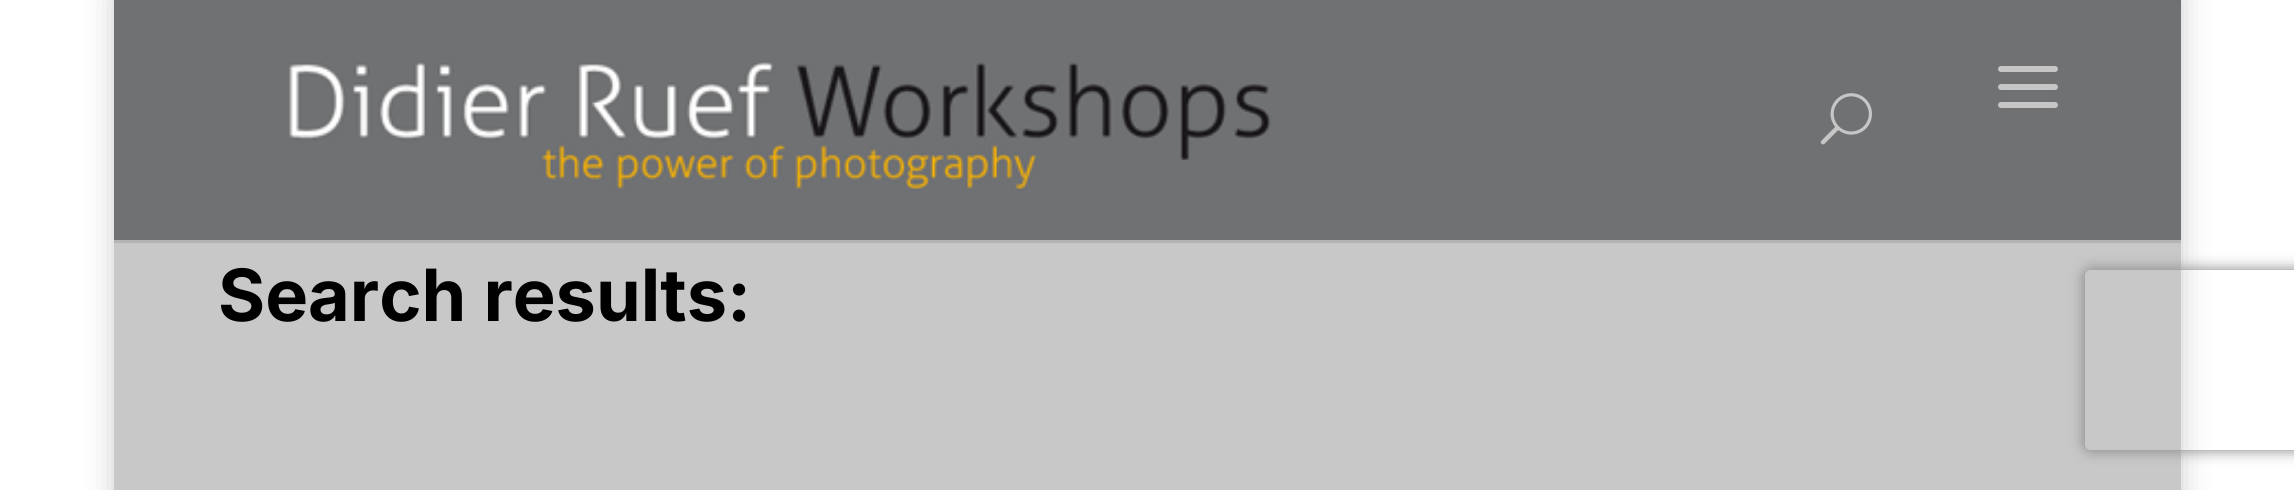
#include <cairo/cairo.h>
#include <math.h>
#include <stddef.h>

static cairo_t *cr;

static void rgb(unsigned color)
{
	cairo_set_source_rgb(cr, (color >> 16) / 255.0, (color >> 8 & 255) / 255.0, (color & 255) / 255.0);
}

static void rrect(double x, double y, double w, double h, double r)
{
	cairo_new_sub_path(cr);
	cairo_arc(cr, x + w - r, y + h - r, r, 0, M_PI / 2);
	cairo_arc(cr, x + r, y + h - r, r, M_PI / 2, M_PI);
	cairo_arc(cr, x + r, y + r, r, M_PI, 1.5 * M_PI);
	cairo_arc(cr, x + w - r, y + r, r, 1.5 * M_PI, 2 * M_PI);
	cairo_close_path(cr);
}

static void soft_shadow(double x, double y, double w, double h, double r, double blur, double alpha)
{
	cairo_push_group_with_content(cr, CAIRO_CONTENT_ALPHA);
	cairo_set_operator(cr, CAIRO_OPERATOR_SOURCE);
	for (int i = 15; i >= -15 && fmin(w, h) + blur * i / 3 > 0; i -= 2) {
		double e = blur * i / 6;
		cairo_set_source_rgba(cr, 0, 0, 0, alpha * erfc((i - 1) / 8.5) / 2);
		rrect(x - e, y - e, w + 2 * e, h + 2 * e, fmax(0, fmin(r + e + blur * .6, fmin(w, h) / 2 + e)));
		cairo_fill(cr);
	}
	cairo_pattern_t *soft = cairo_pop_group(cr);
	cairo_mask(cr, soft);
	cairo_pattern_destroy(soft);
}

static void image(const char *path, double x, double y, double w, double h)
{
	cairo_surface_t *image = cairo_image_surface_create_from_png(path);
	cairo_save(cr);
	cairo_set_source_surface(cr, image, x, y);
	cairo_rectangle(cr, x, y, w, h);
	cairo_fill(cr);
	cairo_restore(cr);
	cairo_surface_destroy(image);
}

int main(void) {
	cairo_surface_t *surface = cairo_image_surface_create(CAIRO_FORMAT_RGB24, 2294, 490);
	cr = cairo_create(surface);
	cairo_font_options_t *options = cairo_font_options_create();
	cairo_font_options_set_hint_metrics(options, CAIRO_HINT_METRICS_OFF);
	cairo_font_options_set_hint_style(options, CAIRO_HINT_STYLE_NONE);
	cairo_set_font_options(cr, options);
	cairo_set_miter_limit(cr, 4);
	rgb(0xffffff);
	cairo_paint(cr);
	rgb(0x000000);
	soft_shadow(114, -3, 2067, 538, 0, 15, 0.2);
	rgb(0xb4b4b4);
	cairo_rectangle(cr, 114, 240, 2067, 3);
	cairo_fill(cr);
	rgb(0x707173);
	cairo_rectangle(cr, 114, 0, 2067, 240);
	cairo_fill(cr);
	image("img/1.png", 289, 61, 982, 130);
	image("img/2.png", 1998, 66, 60, 42);
	image("img/3.png", 1820, 93, 52, 52);
	rgb(0xc8c8c8);
	cairo_rectangle(cr, 114, 243, 2067, 247);
	cairo_fill(cr);
	cairo_save(cr);
	cairo_set_fill_rule(cr, CAIRO_FILL_RULE_EVEN_ODD);
	cairo_new_path(cr);
	cairo_move_to(cr, 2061, 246);
	cairo_line_to(cr, 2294, 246);
	cairo_line_to(cr, 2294, 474);
	cairo_line_to(cr, 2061, 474);
	cairo_close_path(cr);
	cairo_move_to(cr, 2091, 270);
	cairo_line_to(cr, 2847, 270);
	cairo_curve_to(cr, 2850.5, 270, 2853, 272.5, 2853, 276);
	cairo_line_to(cr, 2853, 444);
	cairo_curve_to(cr, 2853, 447.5, 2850.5, 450, 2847, 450);
	cairo_line_to(cr, 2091, 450);
	cairo_curve_to(cr, 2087.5, 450, 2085, 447.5, 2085, 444);
	cairo_line_to(cr, 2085, 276);
	cairo_curve_to(cr, 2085, 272.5, 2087.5, 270, 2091, 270);
	cairo_close_path(cr);
	cairo_clip(cr);
	rgb(0x808080);
	soft_shadow(2085, 270, 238, 180, 6, 7.5, 1);
	cairo_restore(cr);
	cairo_select_font_face(cr, "Inter", CAIRO_FONT_SLANT_NORMAL, CAIRO_FONT_WEIGHT_BOLD);
	cairo_set_font_size(cr, 72);
	rgb(0x000000);
	cairo_move_to(cr, 218, 321);
	cairo_show_text(cr, "Search results:");
	cairo_surface_write_to_png(surface, "page.png");
	cairo_font_options_destroy(options);
	cairo_destroy(cr);
	cairo_surface_destroy(surface);
	return 0;
}
